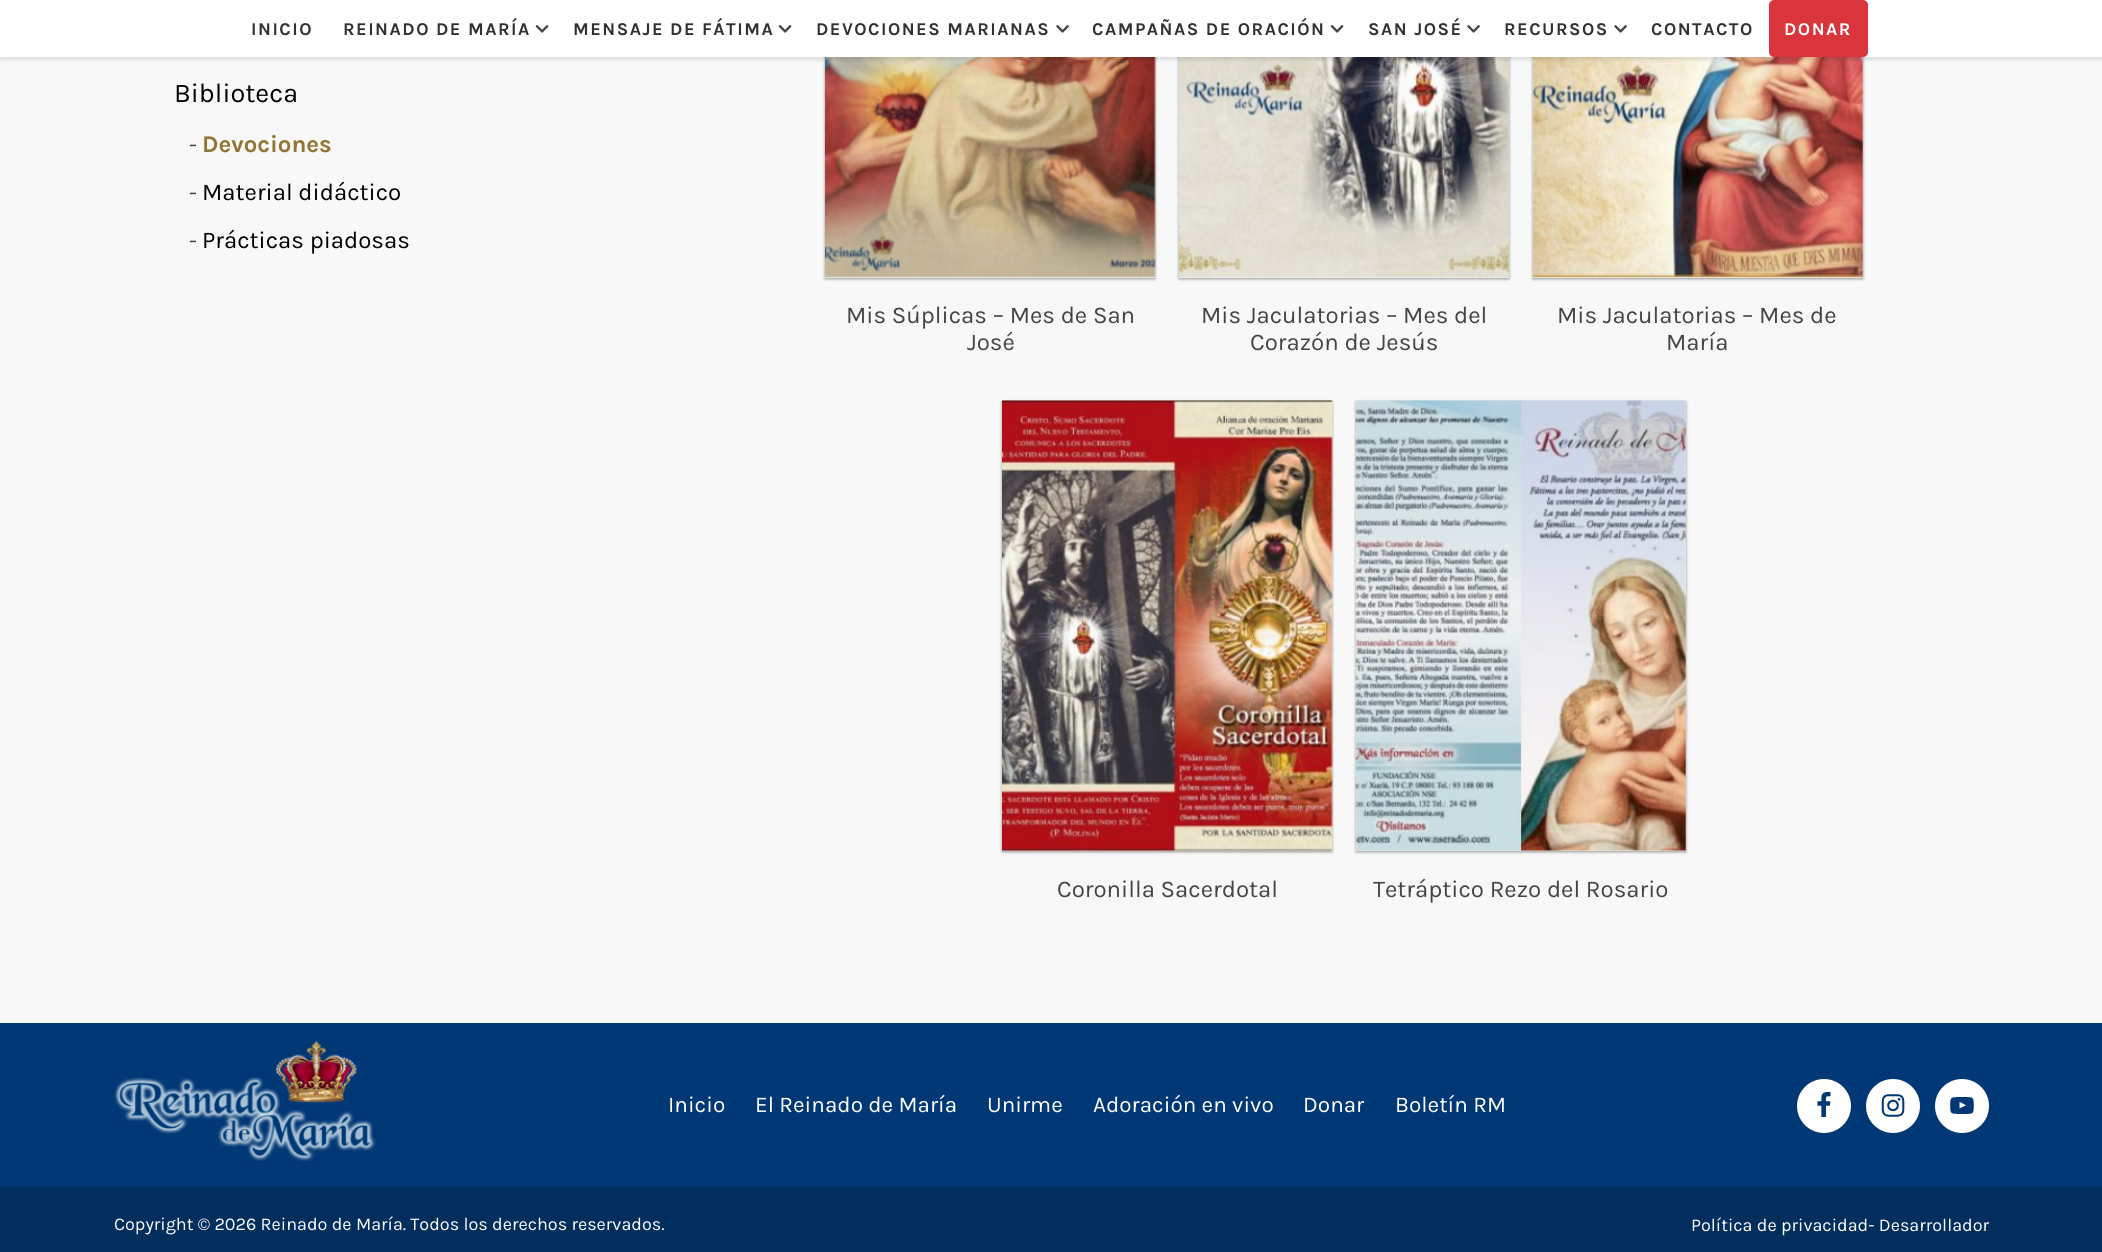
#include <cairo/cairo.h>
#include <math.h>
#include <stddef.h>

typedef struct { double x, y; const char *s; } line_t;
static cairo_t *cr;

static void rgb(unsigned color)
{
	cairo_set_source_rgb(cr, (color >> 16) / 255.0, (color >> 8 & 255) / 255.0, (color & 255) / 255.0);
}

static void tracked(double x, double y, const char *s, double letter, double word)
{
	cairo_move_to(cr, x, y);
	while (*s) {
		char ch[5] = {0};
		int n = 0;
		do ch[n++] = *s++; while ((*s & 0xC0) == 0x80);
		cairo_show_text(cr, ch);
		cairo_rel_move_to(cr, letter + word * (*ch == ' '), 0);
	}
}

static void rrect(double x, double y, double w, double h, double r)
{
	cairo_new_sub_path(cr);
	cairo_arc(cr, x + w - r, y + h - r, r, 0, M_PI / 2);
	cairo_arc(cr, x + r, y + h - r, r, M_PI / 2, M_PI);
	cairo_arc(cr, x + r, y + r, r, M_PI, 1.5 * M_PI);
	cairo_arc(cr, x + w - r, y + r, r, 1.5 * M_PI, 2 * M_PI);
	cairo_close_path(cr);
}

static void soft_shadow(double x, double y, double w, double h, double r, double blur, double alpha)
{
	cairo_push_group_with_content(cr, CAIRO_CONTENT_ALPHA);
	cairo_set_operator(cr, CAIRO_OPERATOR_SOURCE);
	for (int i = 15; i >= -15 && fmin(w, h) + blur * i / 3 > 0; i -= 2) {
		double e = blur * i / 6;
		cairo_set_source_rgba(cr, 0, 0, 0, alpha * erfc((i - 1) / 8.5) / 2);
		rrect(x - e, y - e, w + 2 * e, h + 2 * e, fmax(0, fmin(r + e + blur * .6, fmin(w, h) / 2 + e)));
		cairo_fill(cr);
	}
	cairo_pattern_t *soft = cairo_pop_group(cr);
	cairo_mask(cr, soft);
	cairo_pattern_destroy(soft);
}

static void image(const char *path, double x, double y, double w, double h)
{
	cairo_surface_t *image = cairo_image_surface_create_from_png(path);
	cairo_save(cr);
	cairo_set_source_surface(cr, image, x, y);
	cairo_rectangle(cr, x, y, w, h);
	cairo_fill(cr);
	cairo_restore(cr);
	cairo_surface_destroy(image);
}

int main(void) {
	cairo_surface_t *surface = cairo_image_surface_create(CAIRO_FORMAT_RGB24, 2102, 1252);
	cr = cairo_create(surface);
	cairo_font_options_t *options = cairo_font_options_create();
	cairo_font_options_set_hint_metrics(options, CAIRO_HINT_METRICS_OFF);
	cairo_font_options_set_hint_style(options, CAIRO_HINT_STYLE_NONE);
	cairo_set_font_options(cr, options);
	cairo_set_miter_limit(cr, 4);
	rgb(0xf8f8f8);
	cairo_paint(cr);
	rgb(0x000000);
	soft_shadow(825, -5, 330, 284, 0, 1.5, 0.22);
	soft_shadow(825, -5, 330, 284, 0, 1.5, 0.22);
	rgb(0xeeeeee);
	cairo_rectangle(cr, 825, 57, 330, 221);
	cairo_fill(cr);
	image("img/3.png", 825, 57, 331, 221);
	rgb(0x000000);
	soft_shadow(1179, -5, 330, 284, 0, 1.5, 0.22);
	soft_shadow(1179, -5, 330, 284, 0, 1.5, 0.22);
	rgb(0xeeeeee);
	cairo_rectangle(cr, 1179, 57, 330, 221);
	cairo_fill(cr);
	image("img/4.png", 1178, 57, 331, 221);
	rgb(0x000000);
	soft_shadow(1533, -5, 330, 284, 0, 1.5, 0.22);
	soft_shadow(1533, -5, 330, 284, 0, 1.5, 0.22);
	rgb(0xeeeeee);
	cairo_rectangle(cr, 1533, 57, 330, 221);
	cairo_fill(cr);
	image("img/5.png", 1532, 57, 331, 221);
	rgb(0x000000);
	soft_shadow(0, 3, 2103, 57, 0, 1.5, 0.1);
	rgb(0xffffff);
	cairo_rectangle(cr, 0, 0, 2102, 57);
	cairo_fill(cr);
	image("img/1.png", 535, 25, 14, 8);
	image("img/1.png", 778, 25, 14, 8);
	image("img/2.png", 1056, 25, 13, 8);
	image("img/1.png", 1330, 25, 14, 8);
	image("img/2.png", 1467, 25, 13, 8);
	image("img/2.png", 1614, 25, 13, 8);
	rgb(0xda343c);
	rrect(1769, 0, 99, 57, 5);
	cairo_fill(cr);
	rgb(0x000000);
	soft_shadow(1002, 402, 330, 450, 0, 1.5, 0.22);
	soft_shadow(1002, 402, 330, 450, 0, 1.5, 0.22);
	rgb(0xeeeeee);
	cairo_rectangle(cr, 1002, 401, 330, 450);
	cairo_fill(cr);
	image("img/6.png", 1002, 400, 331, 452);
	rgb(0x000000);
	soft_shadow(1356, 402, 330, 450, 0, 1.5, 0.22);
	soft_shadow(1356, 402, 330, 450, 0, 1.5, 0.22);
	rgb(0xeeeeee);
	cairo_rectangle(cr, 1356, 401, 330, 450);
	cairo_fill(cr);
	image("img/7.png", 1355, 400, 331, 452);
	rgb(0x003876);
	cairo_rectangle(cr, 0, 1023, 2102, 164);
	cairo_fill(cr);
	image("img/8.png", 114, 1041, 262, 120);
	rgb(0xffffff);
	cairo_arc(cr, 1824, 1106, 27, 0, 2 * M_PI);
	cairo_fill(cr);
	image("img/9.png", 1817, 1092, 14, 25);
	cairo_arc(cr, 1893, 1106, 27, 0, 2 * M_PI);
	cairo_fill(cr);
	image("img/10.png", 1881, 1094, 24, 23);
	cairo_arc(cr, 1962, 1106, 27, 0, 2 * M_PI);
	cairo_fill(cr);
	image("img/11.png", 1950, 1097, 24, 17);
	rgb(0x022e5e);
	cairo_rectangle(cr, 0, 1187, 2102, 65);
	cairo_fill(cr);
	cairo_select_font_face(cr, "Karla", CAIRO_FONT_SLANT_NORMAL, CAIRO_FONT_WEIGHT_BOLD);
	cairo_set_font_size(cr, 18);
	rgb(0x313131);
	{
		static const line_t items[] = {
			{251, 35, "INICIO"},
			{343, 35, "REINADO DE MARÍA"},
			{573, 35, "MENSAJE DE FÁTIMA"},
			{816, 35, "DEVOCIONES MARIANAS"},
			{1092, 35, "CAMPAÑAS DE ORACIÓN"},
			{1368, 35, "SAN JOSÉ"},
			{1504, 35, "RECURSOS"},
			{1651, 35, "CONTACTO"},
		};
		for (size_t i = 0; i < sizeof items / sizeof *items; i++) {
			tracked(items[i].x, items[i].y, items[i].s, 1.5, 0);
		}
	}
	rgb(0xffffff);
	tracked(1784, 35, "DONAR", 1.5, 0);
	cairo_select_font_face(cr, "Karla", CAIRO_FONT_SLANT_NORMAL, CAIRO_FONT_WEIGHT_NORMAL);
	cairo_set_font_size(cr, 27);
	rgb(0x000000);
	cairo_move_to(cr, 174, 102);
	cairo_show_text(cr, "Biblioteca");
	cairo_set_font_size(cr, 22.5);
	rgb(0x444444);
	cairo_move_to(cr, 189, 152);
	cairo_show_text(cr, "-");
	cairo_select_font_face(cr, "Karla", CAIRO_FONT_SLANT_NORMAL, CAIRO_FONT_WEIGHT_BOLD);
	cairo_set_font_size(cr, 24);
	rgb(0x927532);
	cairo_move_to(cr, 202, 152);
	cairo_show_text(cr, "Devociones");
	cairo_select_font_face(cr, "Karla", CAIRO_FONT_SLANT_NORMAL, CAIRO_FONT_WEIGHT_NORMAL);
	cairo_set_font_size(cr, 22.5);
	rgb(0x444444);
	cairo_move_to(cr, 189, 200);
	cairo_show_text(cr, "-");
	cairo_set_font_size(cr, 24);
	rgb(0x000000);
	cairo_move_to(cr, 202, 200);
	cairo_show_text(cr, "Material didáctico");
	cairo_set_font_size(cr, 22.5);
	rgb(0x444444);
	cairo_move_to(cr, 189, 248);
	cairo_show_text(cr, "-");
	cairo_set_font_size(cr, 24);
	rgb(0x000000);
	cairo_move_to(cr, 202, 248);
	cairo_show_text(cr, "Prácticas piadosas");
	rgb(0x444444);
	{
		static const line_t items[] = {
			{846, 323, "Mis Súplicas – Mes de San"},
			{967, 350, "José"},
			{1201, 323, "Mis Jaculatorias – Mes del"},
			{1250, 350, "Corazón de Jesús"},
			{1557, 323, "Mis Jaculatorias – Mes de"},
			{1666, 350, "María"},
			{1057, 897, "Coronilla Sacerdotal"},
			{1373, 897, "Tetráptico Rezo del Rosario"},
		};
		for (size_t i = 0; i < sizeof items / sizeof *items; i++) {
			cairo_move_to(cr, items[i].x, items[i].y);
			cairo_show_text(cr, items[i].s);
		}
	}
	cairo_set_font_size(cr, 22.5);
	rgb(0xffffff);
	{
		static const line_t items[] = {
			{668, 1112, "Inicio"},
			{755, 1112, "El Reinado de María"},
			{987, 1112, "Unirme"},
			{1093, 1112, "Adoración en vivo"},
			{1303, 1112, "Donar"},
			{1395, 1112, "Boletín RM"},
		};
		for (size_t i = 0; i < sizeof items / sizeof *items; i++) {
			cairo_move_to(cr, items[i].x, items[i].y);
			cairo_show_text(cr, items[i].s);
		}
	}
	cairo_set_font_size(cr, 18);
	cairo_move_to(cr, 114, 1230);
	cairo_show_text(cr, "Copyright © 2026 Reinado de María. Todos los derechos reservados.");
	cairo_move_to(cr, 1691, 1231);
	cairo_show_text(cr, "Política de privacidad- Desarrollador");
	cairo_surface_write_to_png(surface, "page.png");
	cairo_font_options_destroy(options);
	cairo_destroy(cr);
	cairo_surface_destroy(surface);
	return 0;
}
